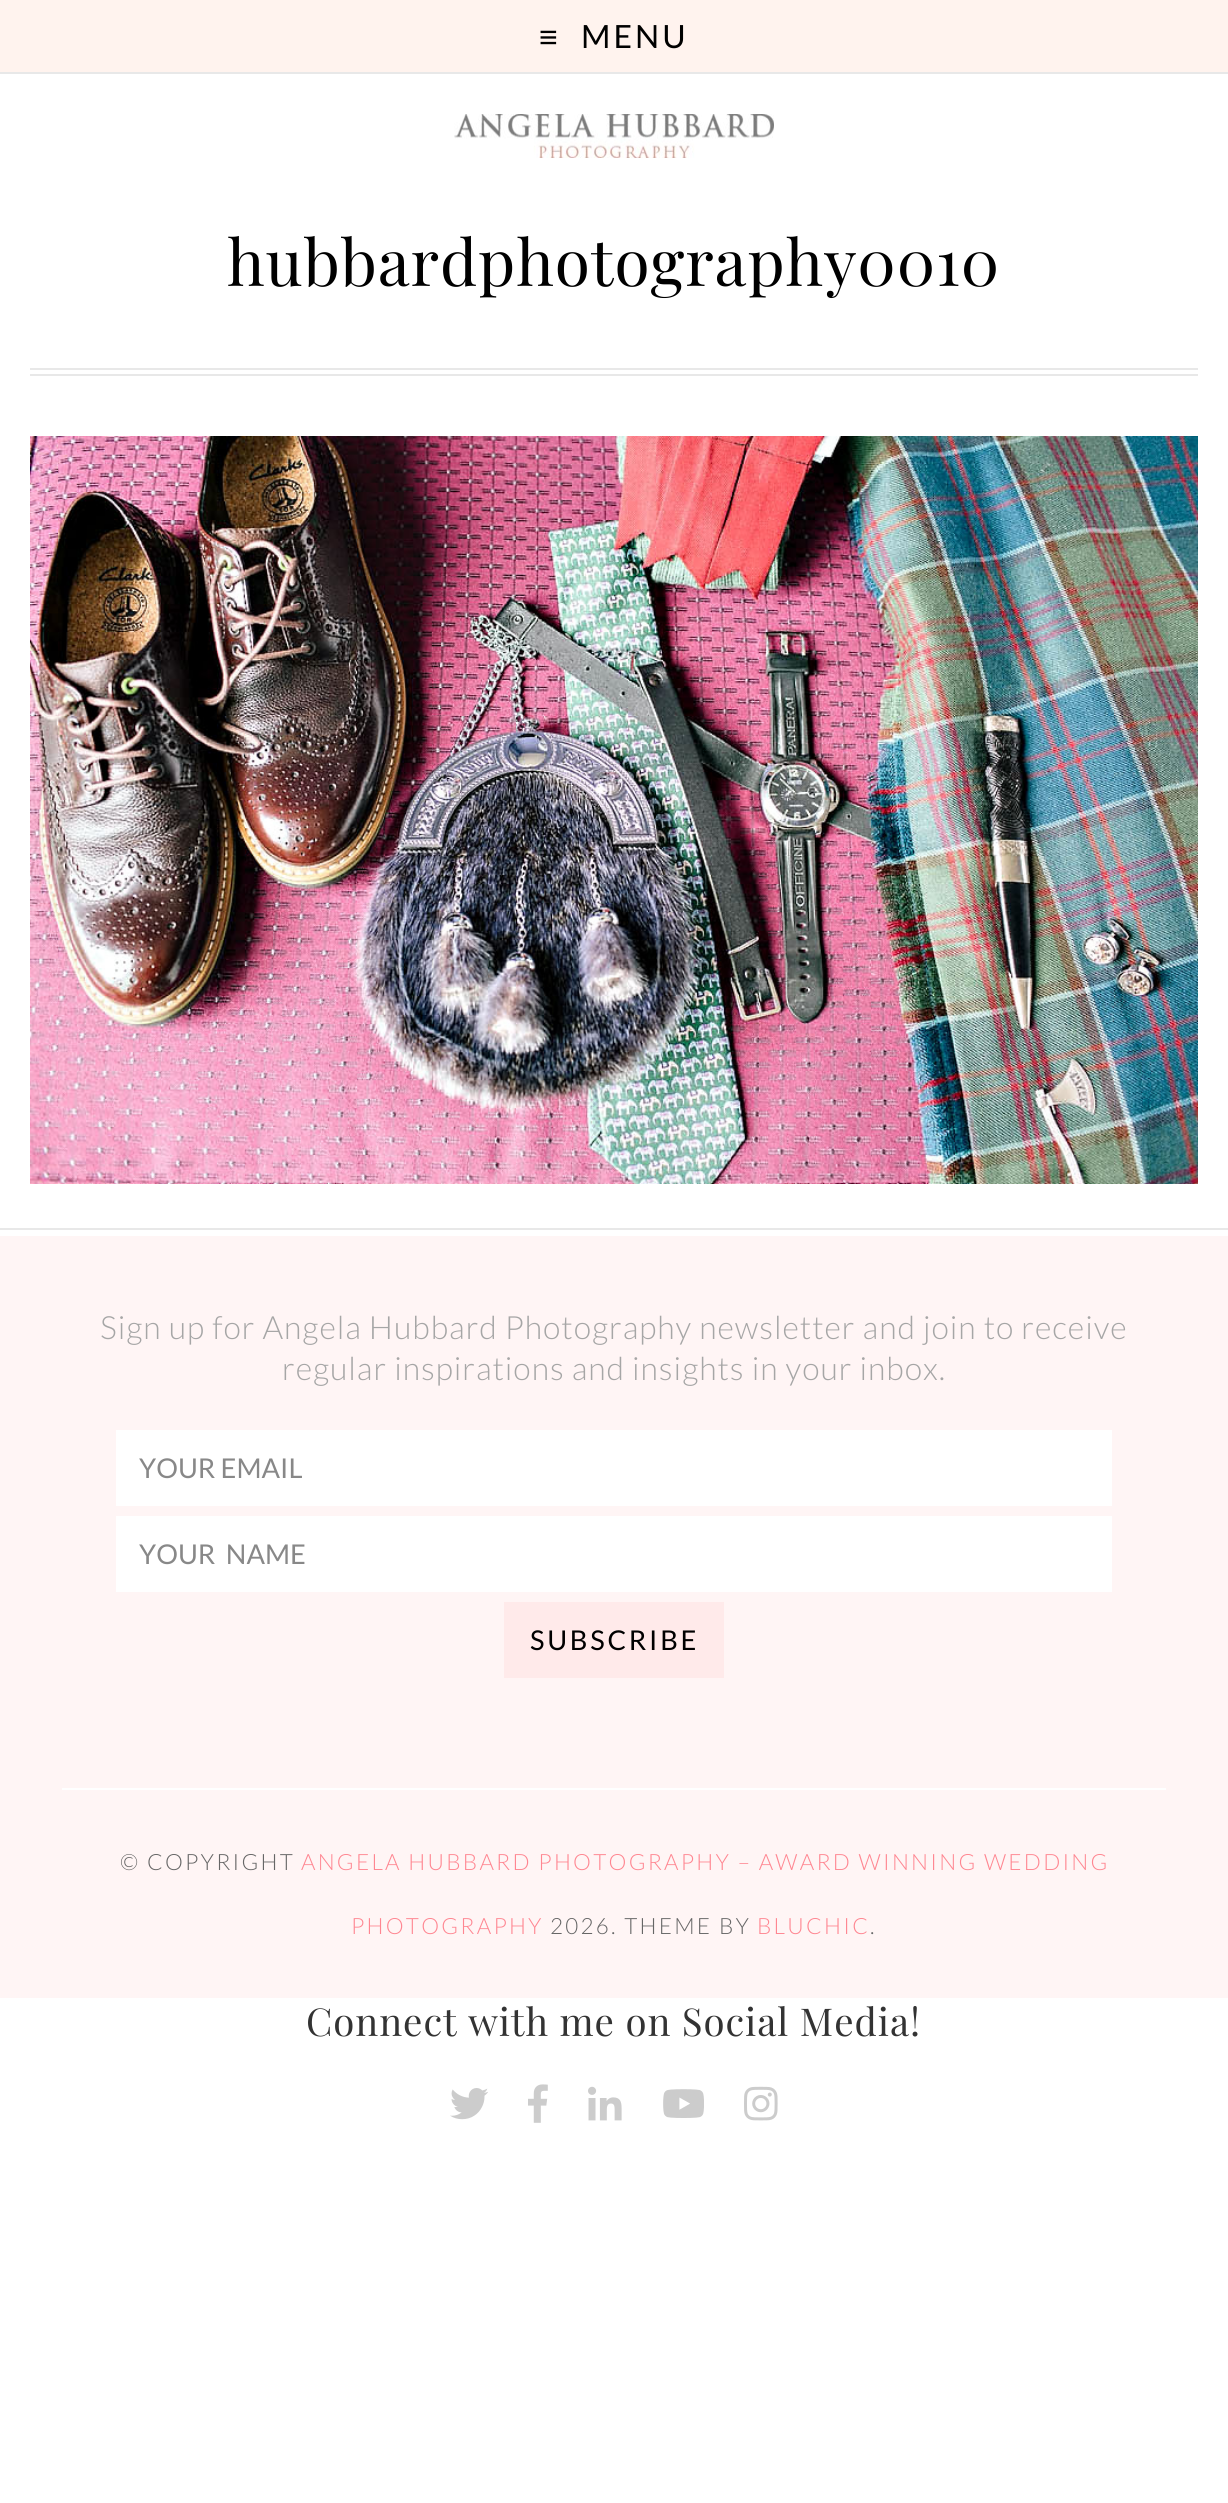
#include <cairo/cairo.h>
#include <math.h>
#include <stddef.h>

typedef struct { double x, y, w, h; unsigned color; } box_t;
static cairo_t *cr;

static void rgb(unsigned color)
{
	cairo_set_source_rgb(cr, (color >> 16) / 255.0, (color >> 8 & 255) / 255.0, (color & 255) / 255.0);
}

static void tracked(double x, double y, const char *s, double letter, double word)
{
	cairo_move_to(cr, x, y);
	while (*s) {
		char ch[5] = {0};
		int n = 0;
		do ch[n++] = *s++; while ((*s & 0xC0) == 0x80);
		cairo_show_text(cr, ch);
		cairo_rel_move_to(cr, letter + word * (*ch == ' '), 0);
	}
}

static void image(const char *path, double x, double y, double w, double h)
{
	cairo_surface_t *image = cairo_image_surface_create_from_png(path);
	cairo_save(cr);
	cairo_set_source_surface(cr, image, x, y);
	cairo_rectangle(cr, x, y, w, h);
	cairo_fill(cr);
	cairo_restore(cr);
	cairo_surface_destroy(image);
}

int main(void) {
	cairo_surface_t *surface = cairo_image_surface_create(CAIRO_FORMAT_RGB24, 1228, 2503);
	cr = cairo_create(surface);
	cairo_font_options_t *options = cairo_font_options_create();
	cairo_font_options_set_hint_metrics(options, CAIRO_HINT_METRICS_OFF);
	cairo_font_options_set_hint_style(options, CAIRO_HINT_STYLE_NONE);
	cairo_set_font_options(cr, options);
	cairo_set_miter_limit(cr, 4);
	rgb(0xffffff);
	cairo_paint(cr);
	rgb(0xfff3ee);
	cairo_rectangle(cr, 0, 0, 1228, 72);
	cairo_fill(cr);
	rgb(0xe8e8e8);
	cairo_rectangle(cr, 0, 72, 1228, 2);
	cairo_fill(cr);
	image("img/1.png", 454, 114, 320, 44);
	cairo_rectangle(cr, 30, 368, 1168, 2);
	cairo_fill(cr);
	cairo_rectangle(cr, 30, 374, 1168, 2);
	cairo_fill(cr);
	image("img/2.png", 30, 436, 1168, 748);
	{
		static const box_t items[] = {
			{0, 1236, 1228, 762, 0xfff5f5},
			{0, 1228, 1228, 2, 0xe8e8e8},
			{116, 1430, 996, 76, 0xffffff},
			{116, 1516, 996, 76, 0xffffff},
			{504, 1602, 220, 76, 0xffeaea},
			{62, 1788, 1104, 2, 0xffffff},
		};
		for (size_t i = 0; i < sizeof items / sizeof *items; i++) {
			rgb(items[i].color);
			cairo_rectangle(cr, items[i].x, items[i].y, items[i].w, items[i].h);
			cairo_fill(cr);
		}
	}
	image("img/3.png", 450, 2088, 38, 32);
	image("img/4.png", 528, 2084, 20, 39);
	image("img/5.png", 588, 2086, 34, 35);
	image("img/6.png", 663, 2089, 41, 29);
	image("img/7.png", 744, 2086, 34, 35);
	cairo_select_font_face(cr, "Liberation Sans", CAIRO_FONT_SLANT_NORMAL, CAIRO_FONT_WEIGHT_NORMAL);
	cairo_set_font_size(cr, 32);
	rgb(0x000000);
	tracked(539, 48, "≡", 3, 0);
	cairo_select_font_face(cr, "Lato", CAIRO_FONT_SLANT_NORMAL, CAIRO_FONT_WEIGHT_NORMAL);
	tracked(581, 48, "MENU", 3, 0);
	cairo_select_font_face(cr, "Playfair Display", CAIRO_FONT_SLANT_NORMAL, CAIRO_FONT_WEIGHT_NORMAL);
	cairo_set_font_size(cr, 64);
	tracked(227, 286, "hubbardphotography0010", 0.95, 0);
	cairo_select_font_face(cr, "Lato Light", CAIRO_FONT_SLANT_NORMAL, CAIRO_FONT_WEIGHT_NORMAL);
	cairo_set_font_size(cr, 32);
	rgb(0xa6a6a6);
	tracked(100, 1339, "Sign up for Angela Hubbard Photography newsletter and join to receive", 0.95, 0);
	tracked(282, 1380, "regular inspirations and insights in your inbox.", 0.95, 0);
	cairo_select_font_face(cr, "Lato", CAIRO_FONT_SLANT_NORMAL, CAIRO_FONT_WEIGHT_NORMAL);
	cairo_set_font_size(cr, 27.25);
	rgb(0x888888);
	cairo_move_to(cr, 139, 1478);
	cairo_show_text(cr, "YOUR EMAIL");
	cairo_move_to(cr, 139, 1564);
	cairo_show_text(cr, "YOUR  NAME");
	rgb(0x000000);
	tracked(530, 1650, "SUBSCRIBE", 2.75, 0);
	cairo_select_font_face(cr, "Lato Light", CAIRO_FONT_SLANT_NORMAL, CAIRO_FONT_WEIGHT_NORMAL);
	cairo_set_font_size(cr, 22.4);
	rgb(0x666666);
	tracked(120, 1870, "© COPYRIGHT", 2.25, 0);
	rgb(0xff8691);
	tracked(301, 1870, "ANGELA HUBBARD PHOTOGRAPHY – AWARD WINNING WEDDING", 2.25, 0);
	tracked(351, 1934, "PHOTOGRAPHY", 2.25, 0);
	rgb(0x666666);
	tracked(550, 1934, "2026. THEME BY", 2.25, 0);
	rgb(0xff8691);
	tracked(757, 1934, "BLUCHIC", 2.25, 0);
	rgb(0x666666);
	tracked(870, 1934, ".", 2.25, 0);
	cairo_select_font_face(cr, "Playfair Display", CAIRO_FONT_SLANT_NORMAL, CAIRO_FONT_WEIGHT_NORMAL);
	cairo_set_font_size(cr, 38.4);
	rgb(0x333333);
	tracked(306, 2036, "Connect with me on Social Media!", 0.95, 0);
	cairo_surface_write_to_png(surface, "page.png");
	cairo_font_options_destroy(options);
	cairo_destroy(cr);
	cairo_surface_destroy(surface);
	return 0;
}
